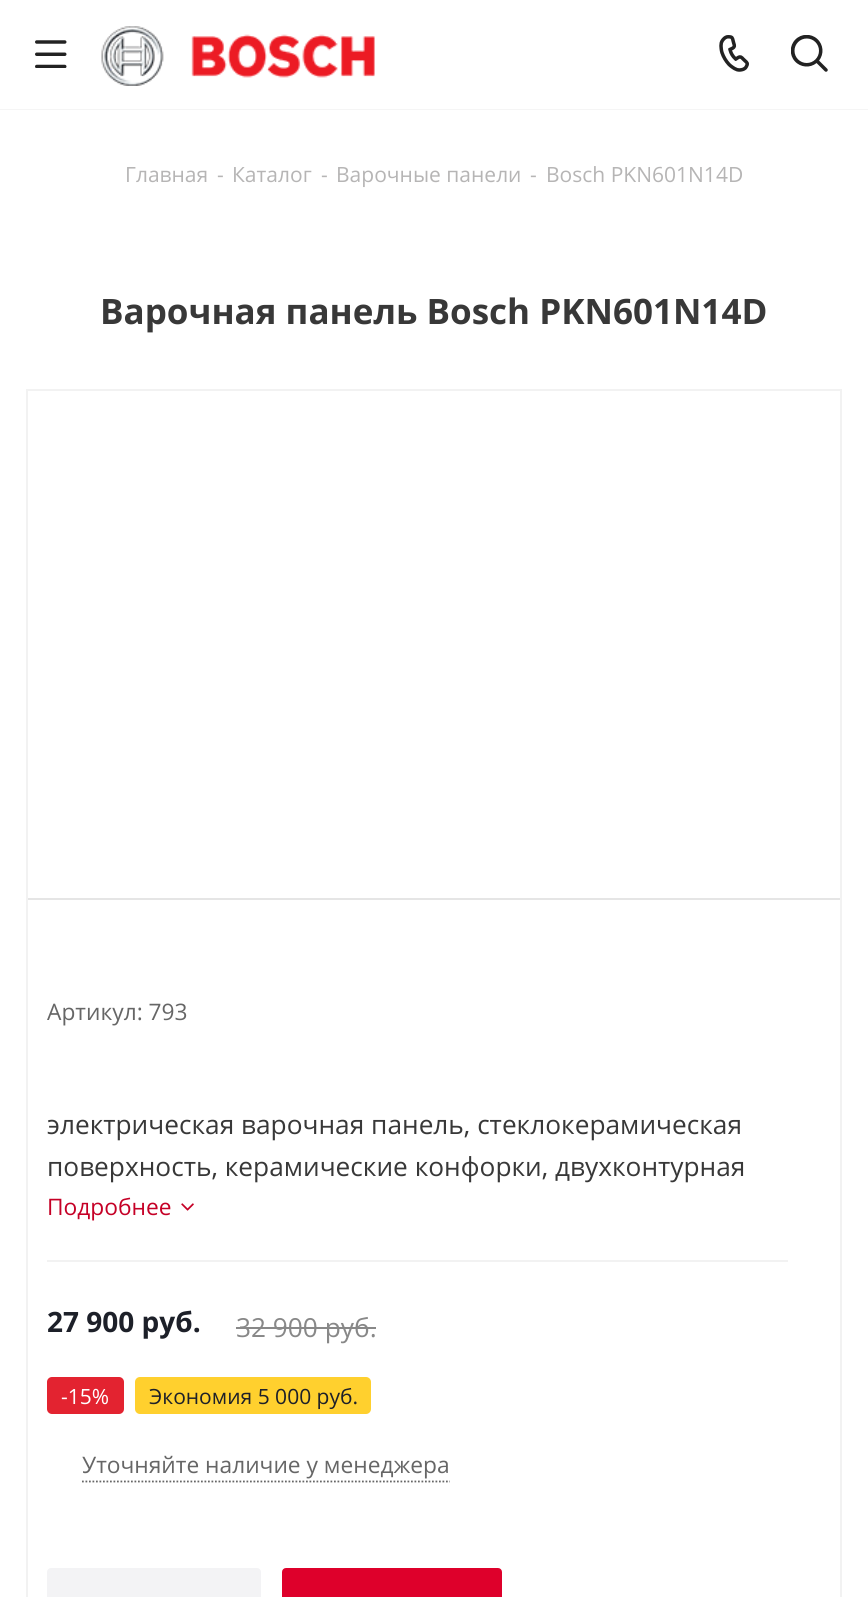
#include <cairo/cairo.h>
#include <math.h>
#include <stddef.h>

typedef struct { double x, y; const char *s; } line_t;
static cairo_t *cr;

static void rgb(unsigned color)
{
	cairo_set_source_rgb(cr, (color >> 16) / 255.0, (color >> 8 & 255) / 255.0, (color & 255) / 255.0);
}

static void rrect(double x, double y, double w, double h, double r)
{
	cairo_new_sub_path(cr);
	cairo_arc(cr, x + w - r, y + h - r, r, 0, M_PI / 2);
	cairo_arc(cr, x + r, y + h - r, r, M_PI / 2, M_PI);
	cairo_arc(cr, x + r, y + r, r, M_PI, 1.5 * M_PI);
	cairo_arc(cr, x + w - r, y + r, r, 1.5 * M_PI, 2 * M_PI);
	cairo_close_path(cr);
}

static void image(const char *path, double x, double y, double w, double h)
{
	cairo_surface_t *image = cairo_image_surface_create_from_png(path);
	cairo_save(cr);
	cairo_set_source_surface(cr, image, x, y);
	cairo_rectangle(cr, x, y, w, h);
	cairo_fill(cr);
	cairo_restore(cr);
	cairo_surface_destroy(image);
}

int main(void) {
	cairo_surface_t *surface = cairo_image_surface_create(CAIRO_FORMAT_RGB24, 868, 1597);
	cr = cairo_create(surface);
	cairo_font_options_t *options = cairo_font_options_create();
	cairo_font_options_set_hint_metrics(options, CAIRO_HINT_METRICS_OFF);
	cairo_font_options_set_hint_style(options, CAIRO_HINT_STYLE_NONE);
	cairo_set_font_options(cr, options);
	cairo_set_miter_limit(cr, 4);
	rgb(0xffffff);
	cairo_paint(cr);
	rgb(0xf5f5f5);
	cairo_rectangle(cr, 0, 109, 868, 1);
	cairo_fill(cr);
	image("img/1.png", 35, 40, 32, 28);
	image("img/2.png", 101, 26, 274, 60);
	image("img/3.png", 719, 35, 30, 37);
	image("img/4.png", 791, 35, 37, 37);
	cairo_rectangle(cr, 27, 390, 814, 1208);
	rgb(0xf2f2f2);
	cairo_stroke(cr);
	rgb(0xe5e5e5);
	cairo_rectangle(cr, 28, 898, 812, 2);
	cairo_fill(cr);
	rgb(0xf2f2f2);
	cairo_rectangle(cr, 47, 1260, 741, 2);
	cairo_fill(cr);
	image("img/5.png", 181, 1203, 13, 8);
	rgb(0x888888);
	cairo_rectangle(cr, 236, 1327, 140, 2);
	cairo_fill(cr);
	rgb(0xe32330);
	rrect(47, 1377, 77, 37, 5);
	cairo_fill(cr);
	rgb(0xffd02e);
	rrect(135, 1377, 236, 37, 5);
	cairo_fill(cr);
	cairo_new_path(cr);
	cairo_move_to(cr, 82, 1481.5);
	cairo_line_to(cr, 450, 1481.5);
	rgb(0x666666);
	cairo_set_line_width(cr, 1.8);
	cairo_set_dash(cr, (double[]){1.75, 1.75}, 2, 0);
	cairo_stroke(cr);
	rgb(0xf3f3f5);
	rrect(48, 1569, 212, 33, 3);
	cairo_fill_preserve(cr);
	cairo_set_line_width(cr, 2);
	cairo_set_dash(cr, NULL, 0, 0);
	cairo_stroke(cr);
	rgb(0xde002b);
	rrect(283, 1569, 218, 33, 3);
	cairo_fill_preserve(cr);
	cairo_stroke(cr);
	cairo_select_font_face(cr, "Open Sans", CAIRO_FONT_SLANT_NORMAL, CAIRO_FONT_WEIGHT_NORMAL);
	cairo_set_font_size(cr, 21);
	rgb(0xb6b5b5);
	{
		static const line_t items[] = {
			{125, 182, "Главная"},
			{217, 182, "-"},
			{232, 182, "Каталог"},
			{321, 182, "-"},
			{336, 182, "Варочные панели"},
			{530, 182, "-"},
			{546, 182, "Bosch PKN601N14D"},
		};
		for (size_t i = 0; i < sizeof items / sizeof *items; i++) {
			cairo_move_to(cr, items[i].x, items[i].y);
			cairo_show_text(cr, items[i].s);
		}
	}
	cairo_select_font_face(cr, "Open Sans", CAIRO_FONT_SLANT_NORMAL, CAIRO_FONT_WEIGHT_BOLD);
	cairo_set_font_size(cr, 35);
	rgb(0x383838);
	cairo_move_to(cr, 100, 324);
	cairo_show_text(cr, "Варочная панель Bosch PKN601N14D");
	cairo_select_font_face(cr, "Open Sans", CAIRO_FONT_SLANT_NORMAL, CAIRO_FONT_WEIGHT_NORMAL);
	cairo_set_font_size(cr, 22.75);
	rgb(0x666666);
	cairo_move_to(cr, 47, 1020);
	cairo_show_text(cr, "Артикул: 793");
	cairo_set_font_size(cr, 26.25);
	rgb(0x383838);
	cairo_move_to(cr, 47, 1134);
	cairo_show_text(cr, "электрическая варочная панель, стеклокерамическая");
	cairo_move_to(cr, 47, 1176);
	cairo_show_text(cr, "поверхность, керамические конфорки, двухконтурная");
	cairo_set_font_size(cr, 22.75);
	rgb(0xc50026);
	cairo_move_to(cr, 47, 1215);
	cairo_show_text(cr, "Подробнее");
	cairo_select_font_face(cr, "Open Sans", CAIRO_FONT_SLANT_NORMAL, CAIRO_FONT_WEIGHT_BOLD);
	cairo_set_font_size(cr, 28);
	rgb(0x1d2029);
	cairo_move_to(cr, 47, 1332);
	cairo_show_text(cr, "27 900 руб.");
	cairo_select_font_face(cr, "Open Sans", CAIRO_FONT_SLANT_NORMAL, CAIRO_FONT_WEIGHT_NORMAL);
	cairo_set_font_size(cr, 26.25);
	rgb(0x888888);
	cairo_move_to(cr, 236, 1337);
	cairo_show_text(cr, "32 900 руб.");
	cairo_set_font_size(cr, 21);
	rgb(0xffffff);
	cairo_move_to(cr, 61, 1404);
	cairo_show_text(cr, "-15%");
	rgb(0x1d2029);
	cairo_move_to(cr, 149, 1404);
	cairo_show_text(cr, "Экономия 5 000 руб.");
	cairo_set_font_size(cr, 22.75);
	rgb(0x666666);
	cairo_move_to(cr, 82, 1473);
	cairo_show_text(cr, "Уточняйте наличие у менеджера");
	cairo_surface_write_to_png(surface, "page.png");
	cairo_font_options_destroy(options);
	cairo_destroy(cr);
	cairo_surface_destroy(surface);
	return 0;
}
